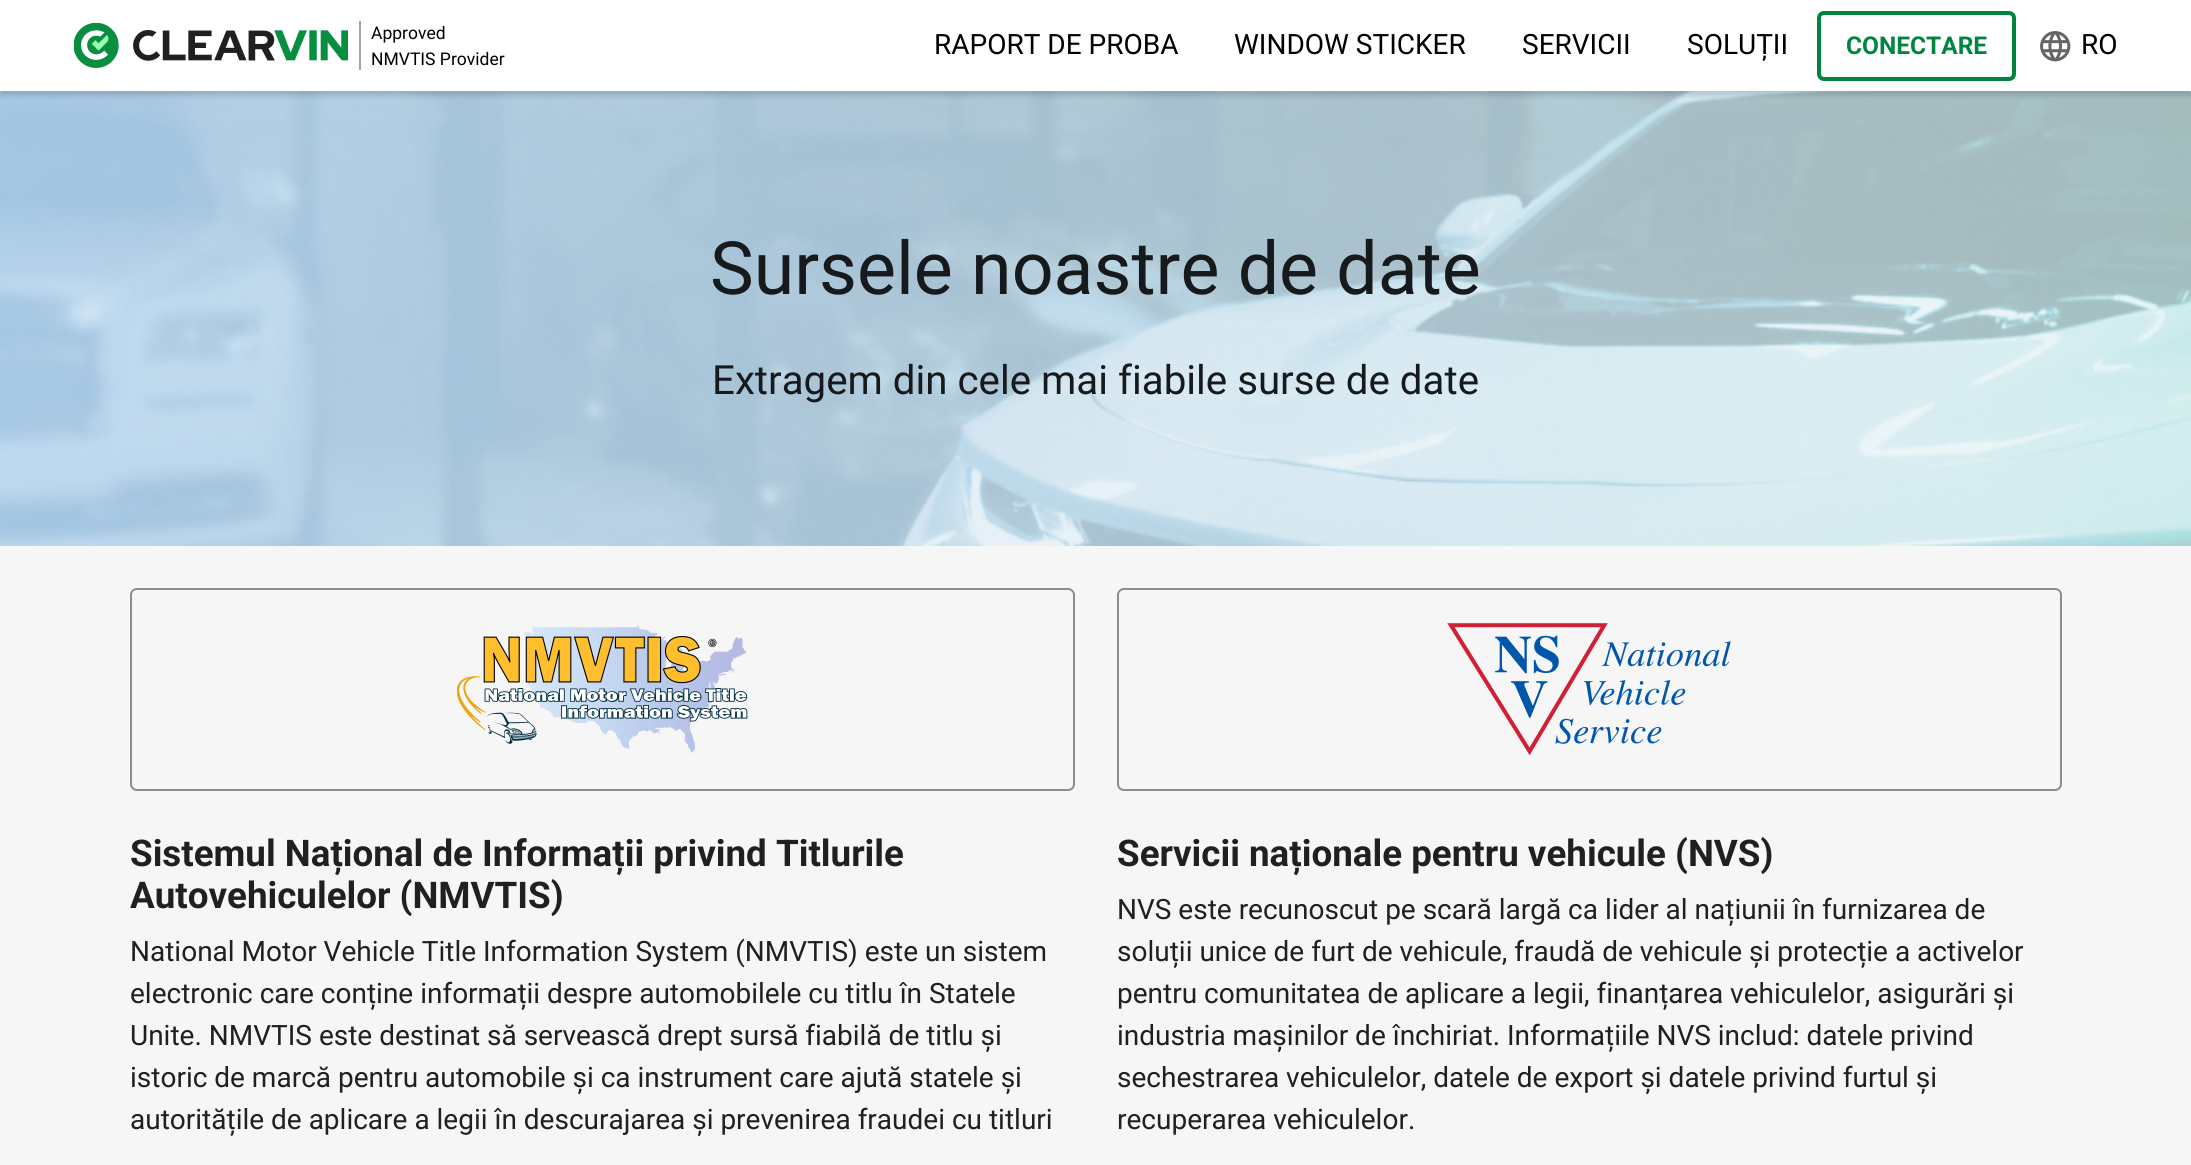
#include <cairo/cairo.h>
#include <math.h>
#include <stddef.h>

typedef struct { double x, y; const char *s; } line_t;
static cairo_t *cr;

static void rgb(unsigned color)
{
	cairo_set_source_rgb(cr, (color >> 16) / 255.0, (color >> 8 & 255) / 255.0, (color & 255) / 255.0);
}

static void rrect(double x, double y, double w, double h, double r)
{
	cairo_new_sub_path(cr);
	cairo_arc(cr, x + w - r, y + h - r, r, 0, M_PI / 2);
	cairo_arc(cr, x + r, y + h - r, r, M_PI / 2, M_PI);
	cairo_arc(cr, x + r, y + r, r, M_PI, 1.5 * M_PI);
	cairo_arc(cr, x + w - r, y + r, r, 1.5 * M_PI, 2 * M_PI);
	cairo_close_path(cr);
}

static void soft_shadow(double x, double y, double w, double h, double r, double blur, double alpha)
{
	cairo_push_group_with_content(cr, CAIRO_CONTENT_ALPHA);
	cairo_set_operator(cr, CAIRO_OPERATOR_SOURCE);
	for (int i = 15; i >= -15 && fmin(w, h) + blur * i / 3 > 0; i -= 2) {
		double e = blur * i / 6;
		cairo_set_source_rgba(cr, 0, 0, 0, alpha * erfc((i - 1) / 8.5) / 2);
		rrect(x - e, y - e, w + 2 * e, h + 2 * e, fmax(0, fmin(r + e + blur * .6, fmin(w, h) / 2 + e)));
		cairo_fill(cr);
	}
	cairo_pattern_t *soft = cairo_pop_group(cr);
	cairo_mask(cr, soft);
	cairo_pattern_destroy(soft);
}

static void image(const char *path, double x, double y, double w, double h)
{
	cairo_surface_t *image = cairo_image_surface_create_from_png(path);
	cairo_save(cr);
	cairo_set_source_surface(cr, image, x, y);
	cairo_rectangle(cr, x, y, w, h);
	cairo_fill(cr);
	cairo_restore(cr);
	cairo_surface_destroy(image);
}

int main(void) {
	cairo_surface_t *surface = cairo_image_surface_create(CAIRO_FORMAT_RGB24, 2191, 1165);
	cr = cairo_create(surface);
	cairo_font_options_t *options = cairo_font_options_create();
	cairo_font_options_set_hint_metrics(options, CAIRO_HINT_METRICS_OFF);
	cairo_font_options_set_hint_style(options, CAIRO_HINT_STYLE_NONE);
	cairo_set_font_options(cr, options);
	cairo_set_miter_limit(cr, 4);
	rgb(0xf6f6f6);
	cairo_paint(cr);
	image("img/3.png", 0, 91, 2191, 455);
	rgb(0x000000);
	soft_shadow(0, 5, 2191, 91, 0, 2.5, 0.14);
	rgb(0xffffff);
	cairo_rectangle(cr, 0, 0, 2191, 91);
	cairo_fill(cr);
	image("img/1.png", 74, 23, 274, 45);
	rgb(0xa3a3a3);
	cairo_rectangle(cr, 359, 21, 2, 49);
	cairo_fill(cr);
	rrect(1819, 13, 195, 66, 5);
	rgb(0x008541);
	cairo_set_line_width(cr, 4);
	cairo_stroke(cr);
	image("img/2.png", 2040, 31, 31, 31);
	rrect(131, 589, 943, 201, 6);
	rgb(0x8c8c8c);
	cairo_set_line_width(cr, 2);
	cairo_stroke(cr);
	image("img/4.png", 457, 625, 291, 129);
	rrect(1118, 589, 943, 201, 6);
	cairo_stroke(cr);
	image("img/5.png", 1447, 623, 284, 133);
	cairo_select_font_face(cr, "Roboto", CAIRO_FONT_SLANT_NORMAL, CAIRO_FONT_WEIGHT_NORMAL);
	cairo_set_font_size(cr, 17.5);
	rgb(0x000000);
	cairo_move_to(cr, 371, 39);
	cairo_show_text(cr, "Approved");
	cairo_move_to(cr, 371, 65);
	cairo_show_text(cr, "NMVTIS Provider");
	cairo_set_font_size(cr, 28);
	{
		static const line_t items[] = {
			{934, 54, "RAPORT DE PROBA"},
			{1234, 54, "WINDOW STICKER"},
			{1522, 54, "SERVICII"},
			{1687, 54, "SOLUȚII"},
		};
		for (size_t i = 0; i < sizeof items / sizeof *items; i++) {
			cairo_move_to(cr, items[i].x, items[i].y);
			cairo_show_text(cr, items[i].s);
		}
	}
	cairo_select_font_face(cr, "Roboto", CAIRO_FONT_SLANT_NORMAL, CAIRO_FONT_WEIGHT_BOLD);
	cairo_set_font_size(cr, 24.5);
	rgb(0x008541);
	cairo_move_to(cr, 1846, 54);
	cairo_show_text(cr, "CONECTARE");
	cairo_select_font_face(cr, "Roboto", CAIRO_FONT_SLANT_NORMAL, CAIRO_FONT_WEIGHT_NORMAL);
	cairo_set_font_size(cr, 28);
	rgb(0x000000);
	cairo_move_to(cr, 2081, 54);
	cairo_show_text(cr, "RO");
	cairo_set_font_size(cr, 73.5);
	rgb(0x171a1c);
	cairo_move_to(cr, 710, 294);
	cairo_show_text(cr, "Sursele noastre de date");
	cairo_set_font_size(cr, 40.25);
	cairo_move_to(cr, 712, 394);
	cairo_show_text(cr, "Extragem din cele mai fiabile surse de date");
	cairo_select_font_face(cr, "Roboto", CAIRO_FONT_SLANT_NORMAL, CAIRO_FONT_WEIGHT_BOLD);
	cairo_set_font_size(cr, 36.75);
	rgb(0x202020);
	cairo_move_to(cr, 130, 866);
	cairo_show_text(cr, "Sistemul Național de Informații privind Titlurile");
	cairo_move_to(cr, 130, 908);
	cairo_show_text(cr, "Autovehiculelor (NMVTIS)");
	cairo_select_font_face(cr, "Roboto", CAIRO_FONT_SLANT_NORMAL, CAIRO_FONT_WEIGHT_NORMAL);
	cairo_set_font_size(cr, 28);
	{
		static const line_t items[] = {
			{130, 961, "National Motor Vehicle Title Information System (NMVTIS) este un sistem"},
			{130, 1003, "electronic care conține informații despre automobilele cu titlu în Statele"},
			{130, 1045, "Unite. NMVTIS este destinat să servească drept sursă fiabilă de titlu și"},
			{130, 1087, "istoric de marcă pentru automobile și ca instrument care ajută statele și"},
			{130, 1129, "autoritățile de aplicare a legii în descurajarea și prevenirea fraudei cu titluri"},
		};
		for (size_t i = 0; i < sizeof items / sizeof *items; i++) {
			cairo_move_to(cr, items[i].x, items[i].y);
			cairo_show_text(cr, items[i].s);
		}
	}
	cairo_select_font_face(cr, "Roboto", CAIRO_FONT_SLANT_NORMAL, CAIRO_FONT_WEIGHT_BOLD);
	cairo_set_font_size(cr, 36.75);
	cairo_move_to(cr, 1117, 866);
	cairo_show_text(cr, "Servicii naționale pentru vehicule (NVS)");
	cairo_select_font_face(cr, "Roboto", CAIRO_FONT_SLANT_NORMAL, CAIRO_FONT_WEIGHT_NORMAL);
	cairo_set_font_size(cr, 28);
	{
		static const line_t items[] = {
			{1117, 919, "NVS este recunoscut pe scară largă ca lider al națiunii în furnizarea de"},
			{1117, 961, "soluții unice de furt de vehicule, fraudă de vehicule și protecție a activelor"},
			{1117, 1003, "pentru comunitatea de aplicare a legii, finanțarea vehiculelor, asigurări și"},
			{1117, 1045, "industria mașinilor de închiriat. Informațiile NVS includ: datele privind"},
			{1117, 1087, "sechestrarea vehiculelor, datele de export și datele privind furtul și"},
			{1117, 1129, "recuperarea vehiculelor."},
		};
		for (size_t i = 0; i < sizeof items / sizeof *items; i++) {
			cairo_move_to(cr, items[i].x, items[i].y);
			cairo_show_text(cr, items[i].s);
		}
	}
	cairo_surface_write_to_png(surface, "page.png");
	cairo_font_options_destroy(options);
	cairo_destroy(cr);
	cairo_surface_destroy(surface);
	return 0;
}
